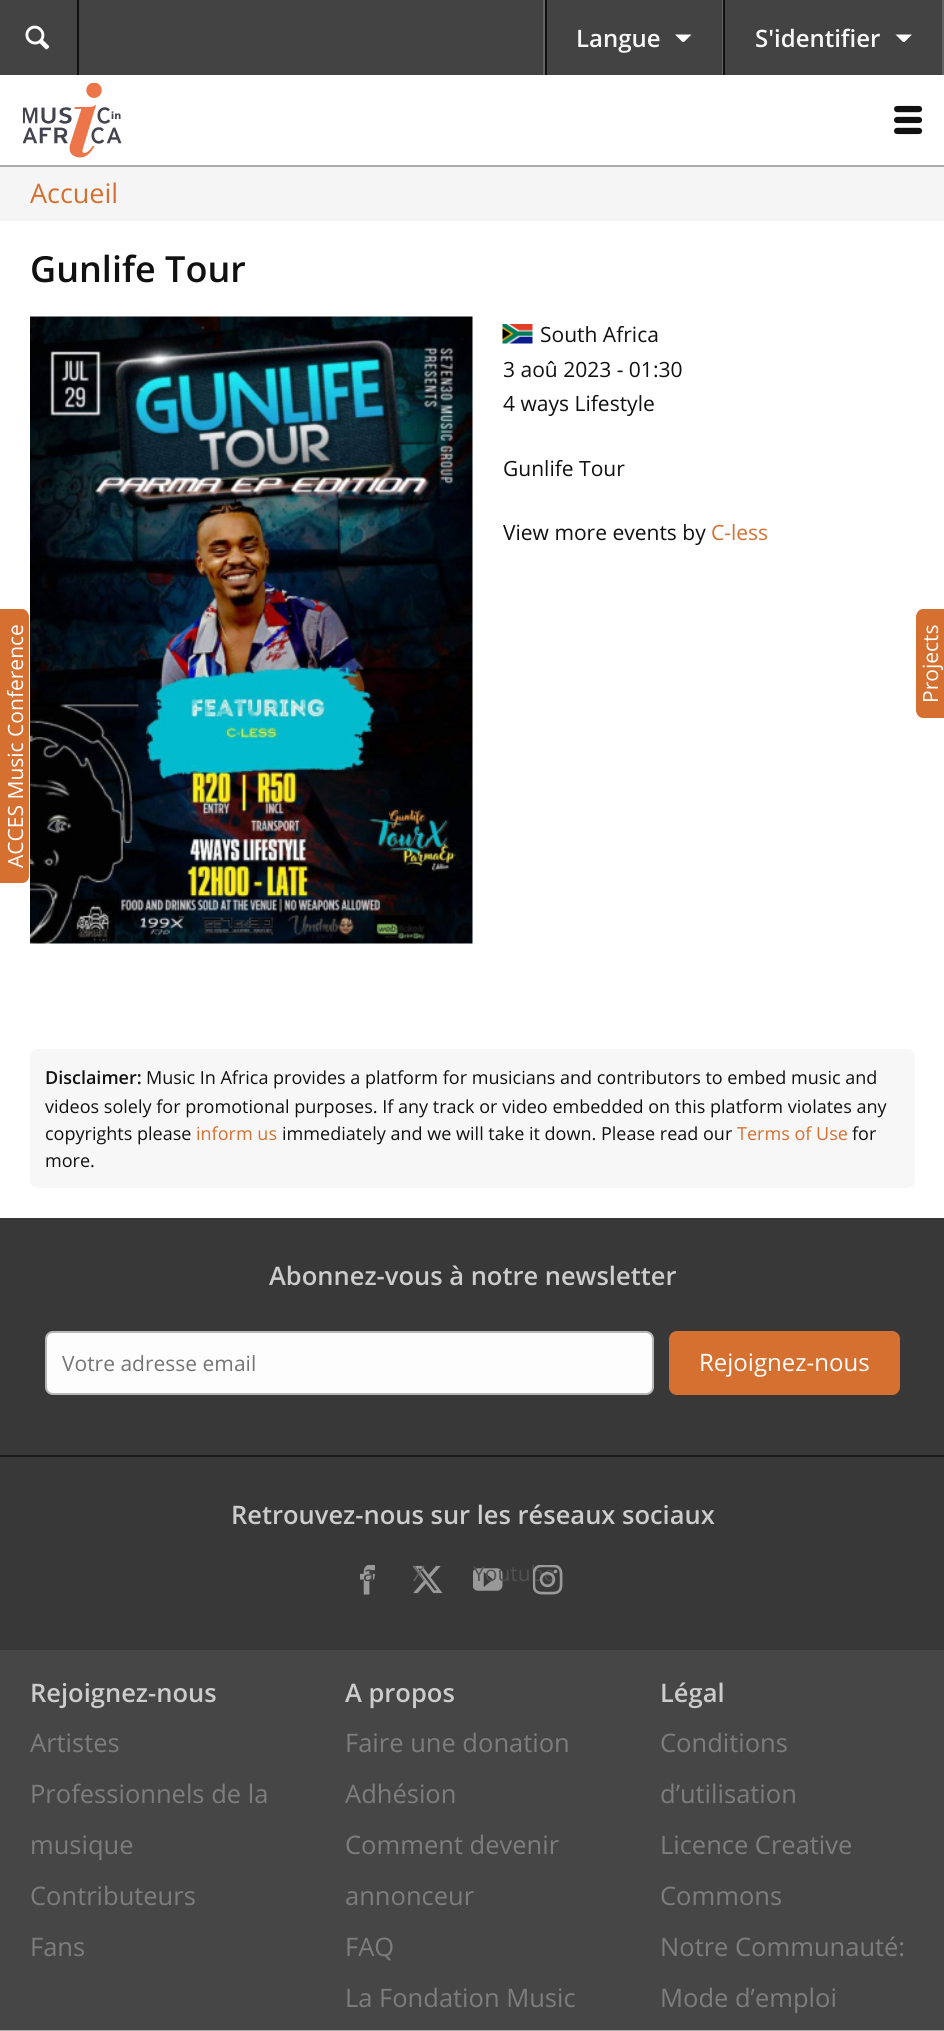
#include <cairo/cairo.h>
#include <math.h>
#include <stddef.h>

typedef struct { double x, y; const char *s; } line_t;
typedef struct { double x, y, w, h; unsigned color; } box_t;
static cairo_t *cr;

static void rgb(unsigned color)
{
	cairo_set_source_rgb(cr, (color >> 16) / 255.0, (color >> 8 & 255) / 255.0, (color & 255) / 255.0);
}

static void rrect(double x, double y, double w, double h, double r)
{
	cairo_new_sub_path(cr);
	cairo_arc(cr, x + w - r, y + h - r, r, 0, M_PI / 2);
	cairo_arc(cr, x + r, y + h - r, r, M_PI / 2, M_PI);
	cairo_arc(cr, x + r, y + r, r, M_PI, 1.5 * M_PI);
	cairo_arc(cr, x + w - r, y + r, r, 1.5 * M_PI, 2 * M_PI);
	cairo_close_path(cr);
}

static void image(const char *path, double x, double y, double w, double h)
{
	cairo_surface_t *image = cairo_image_surface_create_from_png(path);
	cairo_save(cr);
	cairo_set_source_surface(cr, image, x, y);
	cairo_rectangle(cr, x, y, w, h);
	cairo_fill(cr);
	cairo_restore(cr);
	cairo_surface_destroy(image);
}

int main(void) {
	cairo_surface_t *surface = cairo_image_surface_create(CAIRO_FORMAT_RGB24, 944, 2031);
	cr = cairo_create(surface);
	cairo_font_options_t *options = cairo_font_options_create();
	cairo_font_options_set_hint_metrics(options, CAIRO_HINT_METRICS_OFF);
	cairo_font_options_set_hint_style(options, CAIRO_HINT_STYLE_NONE);
	cairo_set_font_options(cr, options);
	cairo_set_miter_limit(cr, 4);
	rgb(0xf5f5f5);
	cairo_paint(cr);
	rgb(0x434343);
	cairo_rectangle(cr, 0, 0, 942, 75);
	cairo_fill(cr);
	rgb(0x111111);
	cairo_rectangle(cr, 77, 0, 2, 75);
	cairo_fill(cr);
	image("img/1.png", 25, 25, 25, 25);
	{
		static const box_t items[] = {
			{722, 0, 1, 75, 0x636363},
			{543, 0, 2, 75, 0x636363},
			{545, 0, 2, 75, 0x111111},
		};
		for (size_t i = 0; i < sizeof items / sizeof *items; i++) {
			rgb(items[i].color);
			cairo_rectangle(cr, items[i].x, items[i].y, items[i].w, items[i].h);
			cairo_fill(cr);
		}
	}
	rgb(0xffffff);
	cairo_new_path(cr);
	cairo_move_to(cr, 675, 34.5);
	cairo_line_to(cr, 691.5, 34.5);
	cairo_line_to(cr, 684, 42);
	cairo_line_to(cr, 682.5, 42);
	cairo_close_path(cr);
	cairo_fill(cr);
	rgb(0x636363);
	cairo_rectangle(cr, 942, 0, 2, 75);
	cairo_fill(cr);
	rgb(0x111111);
	cairo_rectangle(cr, 723, 0, 2, 75);
	cairo_fill(cr);
	rgb(0xffffff);
	cairo_new_path(cr);
	cairo_move_to(cr, 895.5, 34.5);
	cairo_line_to(cr, 912, 34.5);
	cairo_line_to(cr, 904.5, 42);
	cairo_line_to(cr, 903, 42);
	cairo_close_path(cr);
	cairo_fill(cr);
	cairo_rectangle(cr, 0, 75, 944, 90);
	cairo_fill(cr);
	rgb(0xacacac);
	cairo_rectangle(cr, 0, 165, 944, 2);
	cairo_fill(cr);
	image("img/2.png", 23, 83, 99, 75);
	image("img/3.png", 894, 105, 29, 30);
	rgb(0xffffff);
	cairo_rectangle(cr, 0, 221, 944, 997);
	cairo_fill(cr);
	image("img/4.png", 30, 316, 443, 628);
	image("img/5.png", 502, 324, 31, 20);
	rgb(0xd57031);
	cairo_new_path(cr);
	cairo_move_to(cr, 0, 883);
	cairo_line_to(cr, 0, 609);
	cairo_line_to(cr, 22, 609);
	cairo_curve_to(cr, 26, 609, 29, 613, 29, 617);
	cairo_line_to(cr, 29, 876);
	cairo_curve_to(cr, 29, 880, 26, 883, 22, 883);
	cairo_close_path(cr);
	cairo_fill(cr);
	cairo_new_path(cr);
	cairo_move_to(cr, 916, 710);
	cairo_line_to(cr, 916, 617);
	cairo_curve_to(cr, 916, 613, 919, 609, 923, 609);
	cairo_line_to(cr, 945, 609);
	cairo_line_to(cr, 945, 718);
	cairo_line_to(cr, 923, 718);
	cairo_curve_to(cr, 919, 718, 916, 714, 916, 710);
	cairo_close_path(cr);
	cairo_fill(cr);
	rgb(0xf7f7f7);
	rrect(30, 1049, 885, 139, 8);
	cairo_fill(cr);
	{
		static const box_t items[] = {
			{0, 1650, 944, 380, 0x464646},
			{0, 1218, 944, 432, 0x383838},
			{0, 1455, 944, 2, 0x1a1a1a},
		};
		for (size_t i = 0; i < sizeof items / sizeof *items; i++) {
			rgb(items[i].color);
			cairo_rectangle(cr, items[i].x, items[i].y, items[i].w, items[i].h);
			cairo_fill(cr);
		}
	}
	rgb(0xfdfdfd);
	rrect(46, 1332, 607, 62, 7);
	cairo_fill_preserve(cr);
	rgb(0xb7b7b7);
	cairo_stroke(cr);
	rgb(0xd57031);
	rrect(669, 1331, 231, 64, 8);
	cairo_fill(cr);
	image("img/6.png", 473, 1568, 30, 23);
	image("img/7.png", 360, 1565, 15, 30);
	image("img/8.png", 413, 1565, 30, 29);
	rgb(0xacacac);
	cairo_rectangle(cr, 0, 2030, 944, 1);
	cairo_fill(cr);
	cairo_select_font_face(cr, "Open Sans SemiBold", CAIRO_FONT_SLANT_NORMAL, CAIRO_FONT_WEIGHT_NORMAL);
	cairo_set_font_size(cr, 24);
	rgb(0xf7f7f7);
	cairo_move_to(cr, 576, 47);
	cairo_show_text(cr, "Langue");
	cairo_move_to(cr, 755, 47);
	cairo_show_text(cr, "S'identifier");
	cairo_select_font_face(cr, "Open Sans", CAIRO_FONT_SLANT_NORMAL, CAIRO_FONT_WEIGHT_NORMAL);
	cairo_set_font_size(cr, 27);
	rgb(0xd57031);
	cairo_move_to(cr, 30, 203);
	cairo_show_text(cr, "Accueil");
	cairo_select_font_face(cr, "Open Sans SemiBold", CAIRO_FONT_SLANT_NORMAL, CAIRO_FONT_WEIGHT_NORMAL);
	cairo_set_font_size(cr, 36);
	rgb(0x111111);
	cairo_move_to(cr, 30, 282);
	cairo_show_text(cr, "Gunlife Tour");
	cairo_select_font_face(cr, "Open Sans", CAIRO_FONT_SLANT_NORMAL, CAIRO_FONT_WEIGHT_NORMAL);
	cairo_set_font_size(cr, 21);
	{
		static const line_t items[] = {
			{540, 342, "South Africa"},
			{503, 377, "3 aoû 2023 - 01:30"},
			{503, 411, "4 ways Lifestyle"},
			{503, 476, "Gunlife Tour"},
			{503, 540, "View more events by"},
		};
		for (size_t i = 0; i < sizeof items / sizeof *items; i++) {
			cairo_move_to(cr, items[i].x, items[i].y);
			cairo_show_text(cr, items[i].s);
		}
	}
	rgb(0xd57031);
	cairo_move_to(cr, 711, 540);
	cairo_show_text(cr, "C-less");
	rgb(0xffffff);
	cairo_save(cr);
	cairo_translate(cr, 23, 868);
	cairo_rotate(cr, -90 * M_PI / 180);
	cairo_move_to(cr, 0, 0);
	cairo_show_text(cr, "ACCES Music Conference");
	cairo_restore(cr);
	cairo_save(cr);
	cairo_translate(cr, 938, 703);
	cairo_rotate(cr, -90 * M_PI / 180);
	cairo_move_to(cr, 0, 0);
	cairo_show_text(cr, "Projects");
	cairo_restore(cr);
	cairo_select_font_face(cr, "Open Sans SemiBold", CAIRO_FONT_SLANT_NORMAL, CAIRO_FONT_WEIGHT_NORMAL);
	cairo_set_font_size(cr, 18);
	rgb(0x111111);
	cairo_move_to(cr, 45, 1084);
	cairo_show_text(cr, "Disclaimer:");
	cairo_select_font_face(cr, "Open Sans", CAIRO_FONT_SLANT_NORMAL, CAIRO_FONT_WEIGHT_NORMAL);
	{
		static const line_t items[] = {
			{146, 1084, "Music In Africa provides a platform for musicians and contributors to embed music and"},
			{45, 1113, "videos solely for promotional purposes. If any track or video embedded on this platform violates any"},
			{45, 1140, "copyrights please"},
		};
		for (size_t i = 0; i < sizeof items / sizeof *items; i++) {
			cairo_move_to(cr, items[i].x, items[i].y);
			cairo_show_text(cr, items[i].s);
		}
	}
	rgb(0xd57031);
	cairo_move_to(cr, 196, 1140);
	cairo_show_text(cr, "inform us");
	rgb(0x111111);
	cairo_move_to(cr, 282, 1140);
	cairo_show_text(cr, "immediately and we will take it down. Please read our");
	rgb(0xd57031);
	cairo_move_to(cr, 737, 1140);
	cairo_show_text(cr, "Terms of Use");
	rgb(0x111111);
	cairo_move_to(cr, 852, 1140);
	cairo_show_text(cr, "for");
	cairo_move_to(cr, 45, 1167);
	cairo_show_text(cr, "more.");
	cairo_select_font_face(cr, "Open Sans SemiBold", CAIRO_FONT_SLANT_NORMAL, CAIRO_FONT_WEIGHT_NORMAL);
	cairo_set_font_size(cr, 25.5);
	rgb(0xcccccc);
	cairo_move_to(cr, 269, 1285);
	cairo_show_text(cr, "Abonnez-vous à notre newsletter");
	cairo_select_font_face(cr, "Open Sans", CAIRO_FONT_SLANT_NORMAL, CAIRO_FONT_WEIGHT_NORMAL);
	cairo_set_font_size(cr, 21);
	rgb(0x757575);
	cairo_move_to(cr, 62, 1371);
	cairo_show_text(cr, "Votre adresse email");
	cairo_set_font_size(cr, 24);
	rgb(0xffffff);
	cairo_move_to(cr, 699, 1371);
	cairo_show_text(cr, "Rejoignez-nous");
	cairo_select_font_face(cr, "Open Sans SemiBold", CAIRO_FONT_SLANT_NORMAL, CAIRO_FONT_WEIGHT_NORMAL);
	cairo_set_font_size(cr, 25.5);
	rgb(0xcccccc);
	cairo_move_to(cr, 231, 1524);
	cairo_show_text(cr, "Retrouvez-nous sur les réseaux sociaux");
	cairo_select_font_face(cr, "Open Sans", CAIRO_FONT_SLANT_NORMAL, CAIRO_FONT_WEIGHT_NORMAL);
	cairo_set_font_size(cr, 21);
	rgb(0x515151);
	cairo_move_to(cr, 473, 1581);
	cairo_show_text(cr, "Youtube");
	rgb(0x424242);
	cairo_move_to(cr, 363, 1581);
	cairo_show_text(cr, "a");
	rgb(0x666666);
	cairo_move_to(cr, 413, 1581);
	cairo_show_text(cr, "X");
	image("img/9.png", 533, 1565, 30, 30);
	cairo_select_font_face(cr, "Open Sans SemiBold", CAIRO_FONT_SLANT_NORMAL, CAIRO_FONT_WEIGHT_NORMAL);
	cairo_set_font_size(cr, 25.5);
	rgb(0xcccccc);
	cairo_move_to(cr, 30, 1702);
	cairo_show_text(cr, "Rejoignez-nous");
	cairo_select_font_face(cr, "Open Sans", CAIRO_FONT_SLANT_NORMAL, CAIRO_FONT_WEIGHT_NORMAL);
	rgb(0x7d7d7d);
	{
		static const line_t items[] = {
			{30, 1752, "Artistes"},
			{30, 1803, "Professionnels de la"},
			{30, 1854, "musique"},
			{30, 1905, "Contributeurs"},
			{30, 1956, "Fans"},
		};
		for (size_t i = 0; i < sizeof items / sizeof *items; i++) {
			cairo_move_to(cr, items[i].x, items[i].y);
			cairo_show_text(cr, items[i].s);
		}
	}
	cairo_select_font_face(cr, "Open Sans SemiBold", CAIRO_FONT_SLANT_NORMAL, CAIRO_FONT_WEIGHT_NORMAL);
	rgb(0xcccccc);
	cairo_move_to(cr, 345, 1702);
	cairo_show_text(cr, "A propos");
	cairo_select_font_face(cr, "Open Sans", CAIRO_FONT_SLANT_NORMAL, CAIRO_FONT_WEIGHT_NORMAL);
	rgb(0x7d7d7d);
	{
		static const line_t items[] = {
			{345, 1752, "Faire une donation"},
			{345, 1803, "Adhésion"},
			{345, 1854, "Comment devenir"},
			{345, 1905, "annonceur"},
			{345, 1956, "FAQ"},
			{345, 2007, "La Fondation Music"},
		};
		for (size_t i = 0; i < sizeof items / sizeof *items; i++) {
			cairo_move_to(cr, items[i].x, items[i].y);
			cairo_show_text(cr, items[i].s);
		}
	}
	cairo_select_font_face(cr, "Open Sans SemiBold", CAIRO_FONT_SLANT_NORMAL, CAIRO_FONT_WEIGHT_NORMAL);
	rgb(0xcccccc);
	cairo_move_to(cr, 660, 1702);
	cairo_show_text(cr, "Légal");
	cairo_select_font_face(cr, "Open Sans", CAIRO_FONT_SLANT_NORMAL, CAIRO_FONT_WEIGHT_NORMAL);
	rgb(0x7d7d7d);
	{
		static const line_t items[] = {
			{660, 1752, "Conditions"},
			{660, 1803, "d’utilisation"},
			{660, 1854, "Licence Creative"},
			{660, 1905, "Commons"},
			{660, 1956, "Notre Communauté:"},
			{660, 2007, "Mode d’emploi"},
		};
		for (size_t i = 0; i < sizeof items / sizeof *items; i++) {
			cairo_move_to(cr, items[i].x, items[i].y);
			cairo_show_text(cr, items[i].s);
		}
	}
	cairo_surface_write_to_png(surface, "page.png");
	cairo_font_options_destroy(options);
	cairo_destroy(cr);
	cairo_surface_destroy(surface);
	return 0;
}
